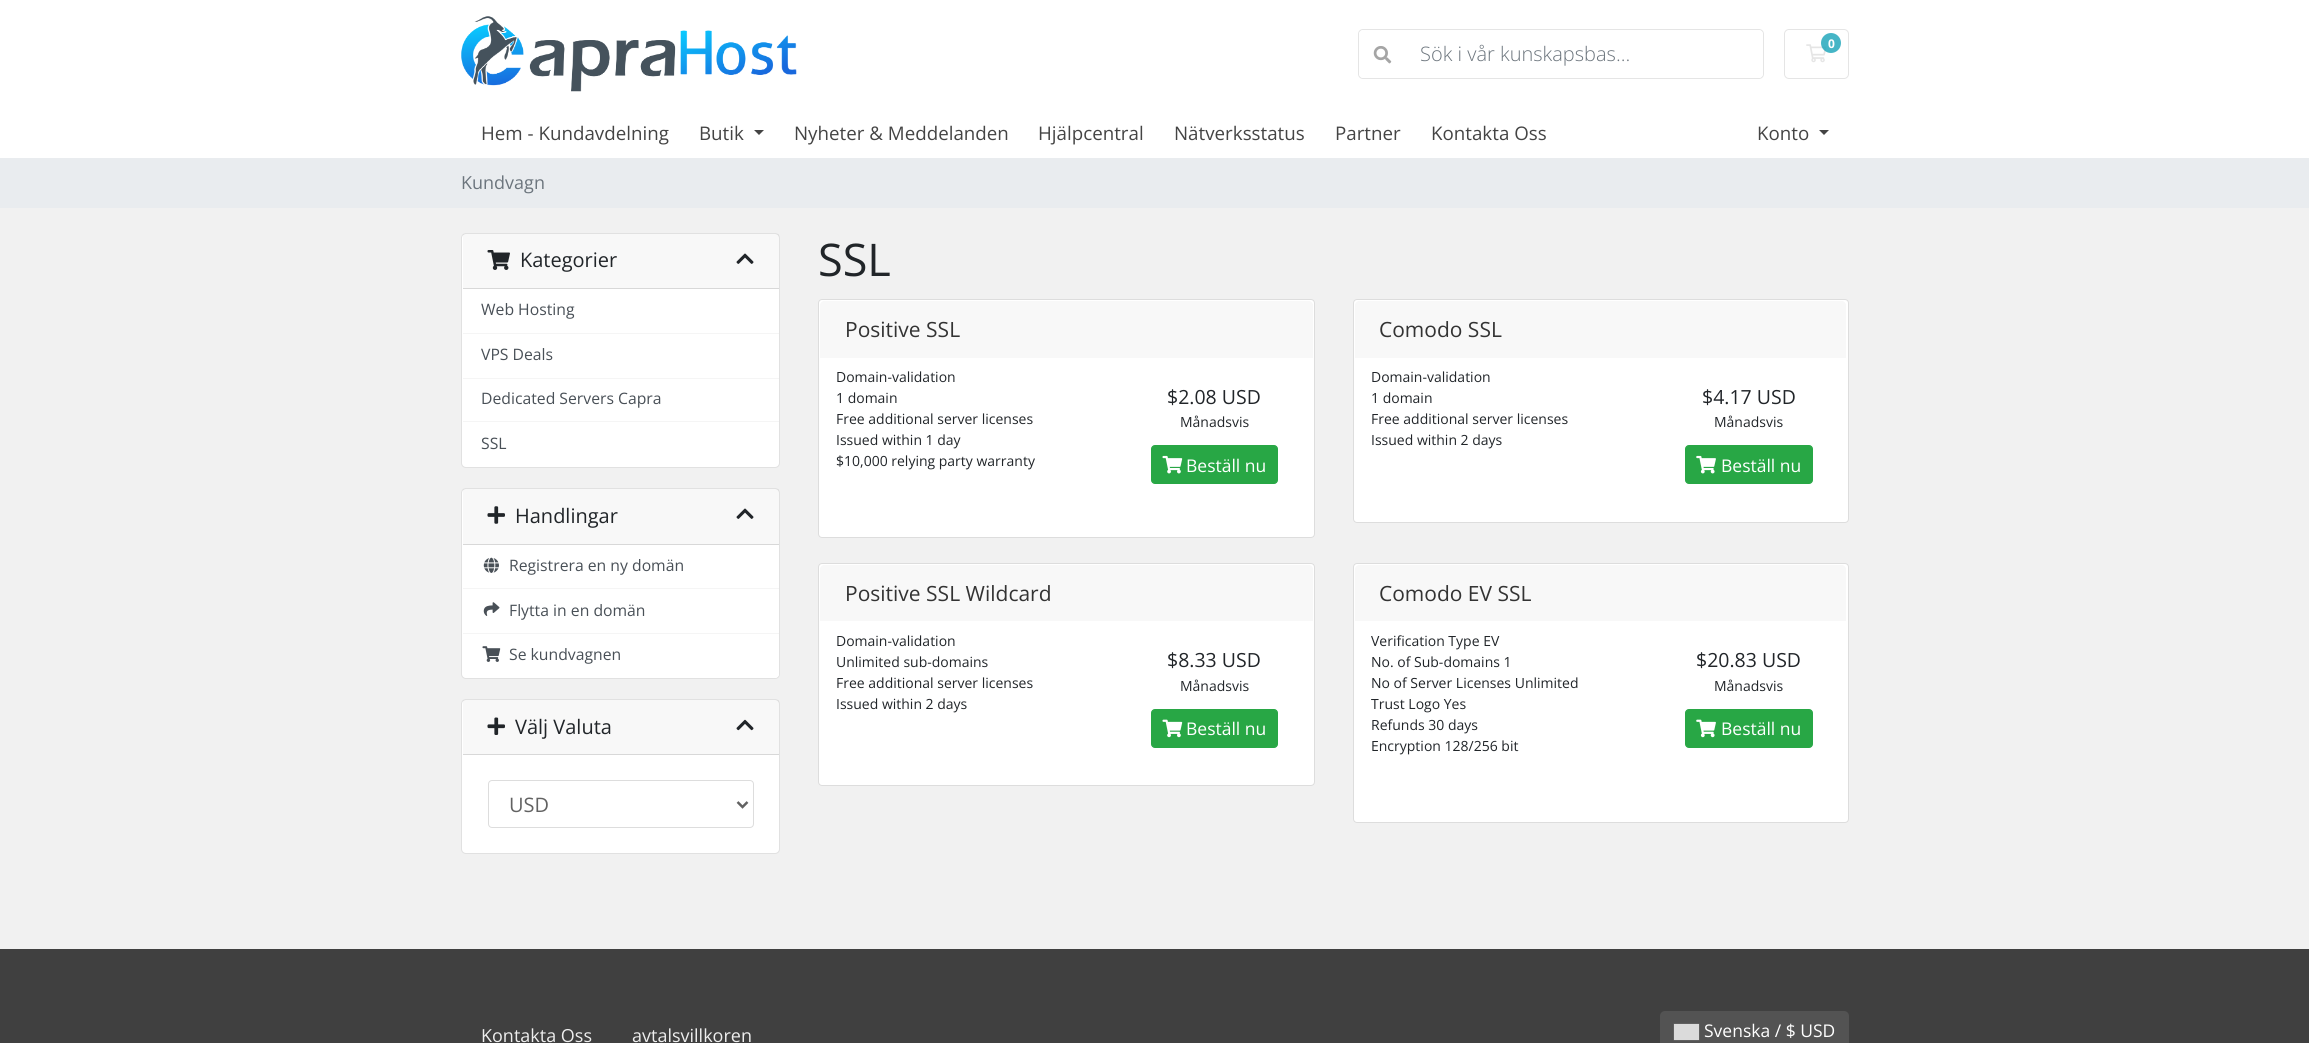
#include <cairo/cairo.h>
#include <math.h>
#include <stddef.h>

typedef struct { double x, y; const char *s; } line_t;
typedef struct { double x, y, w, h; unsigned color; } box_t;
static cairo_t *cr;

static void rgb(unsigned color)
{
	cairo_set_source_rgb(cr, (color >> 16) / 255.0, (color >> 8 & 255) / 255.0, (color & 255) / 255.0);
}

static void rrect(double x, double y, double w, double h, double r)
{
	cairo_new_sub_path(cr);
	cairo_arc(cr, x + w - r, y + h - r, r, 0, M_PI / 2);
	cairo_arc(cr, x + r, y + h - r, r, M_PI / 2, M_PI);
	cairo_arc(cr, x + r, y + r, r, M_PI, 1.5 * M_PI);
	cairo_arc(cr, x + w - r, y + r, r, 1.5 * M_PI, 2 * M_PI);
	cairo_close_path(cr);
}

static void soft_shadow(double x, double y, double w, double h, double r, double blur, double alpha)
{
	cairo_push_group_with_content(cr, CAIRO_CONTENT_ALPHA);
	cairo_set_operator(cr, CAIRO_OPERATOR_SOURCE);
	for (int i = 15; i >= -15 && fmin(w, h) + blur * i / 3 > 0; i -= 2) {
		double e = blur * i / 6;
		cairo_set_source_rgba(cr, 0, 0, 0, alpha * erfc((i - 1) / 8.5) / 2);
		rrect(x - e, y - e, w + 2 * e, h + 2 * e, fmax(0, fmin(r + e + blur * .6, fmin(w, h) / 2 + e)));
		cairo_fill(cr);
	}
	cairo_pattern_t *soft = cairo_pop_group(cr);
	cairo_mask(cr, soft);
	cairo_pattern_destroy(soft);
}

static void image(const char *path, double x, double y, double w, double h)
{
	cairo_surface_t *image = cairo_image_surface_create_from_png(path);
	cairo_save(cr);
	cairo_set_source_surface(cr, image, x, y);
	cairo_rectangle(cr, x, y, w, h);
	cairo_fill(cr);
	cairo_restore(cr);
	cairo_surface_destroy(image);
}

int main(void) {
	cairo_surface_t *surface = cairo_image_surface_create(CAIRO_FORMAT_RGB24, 2309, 1043);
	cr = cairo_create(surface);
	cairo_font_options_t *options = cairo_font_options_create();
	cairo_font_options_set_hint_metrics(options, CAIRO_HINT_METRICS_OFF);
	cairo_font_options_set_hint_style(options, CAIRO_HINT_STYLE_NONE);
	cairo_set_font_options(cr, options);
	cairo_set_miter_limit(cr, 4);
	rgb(0xf1f1f1);
	cairo_paint(cr);
	rgb(0xffffff);
	cairo_rectangle(cr, 0, 0, 2309, 158);
	cairo_fill(cr);
	image("img/1.png", 461, 16, 336, 76);
	rrect(1358.5, 29.5, 405, 49, 4.5);
	rgb(0xe5e5e5);
	cairo_set_line_width(cr, 1);
	cairo_stroke(cr);
	rgb(0xffffff);
	cairo_new_path(cr);
	cairo_move_to(cr, 1405, 30);
	cairo_line_to(cr, 1758, 30);
	cairo_curve_to(cr, 1761, 30, 1763, 32, 1763, 35);
	cairo_line_to(cr, 1763, 73);
	cairo_curve_to(cr, 1763, 76, 1761, 78, 1758, 78);
	cairo_line_to(cr, 1405, 78);
	cairo_close_path(cr);
	cairo_fill(cr);
	cairo_new_path(cr);
	cairo_move_to(cr, 1364, 30);
	cairo_line_to(cr, 1406, 30);
	cairo_line_to(cr, 1406, 78);
	cairo_line_to(cr, 1364, 78);
	cairo_curve_to(cr, 1361, 78, 1359, 76, 1359, 73);
	cairo_line_to(cr, 1359, 35);
	cairo_curve_to(cr, 1359, 32, 1361, 30, 1364, 30);
	cairo_close_path(cr);
	cairo_fill(cr);
	image("img/2.png", 1373, 46, 19, 18);
	rrect(1784.5, 29.5, 64, 49, 4.5);
	rgb(0xe5e5e5);
	cairo_stroke(cr);
	image("img/3.png", 1806, 44, 21, 19);
	cairo_set_source_rgba(cr, 0.09, 0.635, 0.722, 0.8);
	cairo_arc(cr, 1831, 43, 10, 0, 2 * M_PI);
	cairo_fill(cr);
	rgb(0x444444);
	cairo_new_path(cr);
	cairo_move_to(cr, 754, 130);
	cairo_line_to(cr, 764, 130);
	cairo_line_to(cr, 759, 135);
	cairo_close_path(cr);
	cairo_fill(cr);
	cairo_new_path(cr);
	cairo_move_to(cr, 1819, 130);
	cairo_line_to(cr, 1829, 130);
	cairo_line_to(cr, 1824, 135);
	cairo_close_path(cr);
	cairo_fill(cr);
	rgb(0xe9ecef);
	cairo_rectangle(cr, 0, 158, 2309, 50);
	cairo_fill(cr);
	rgb(0xffffff);
	rrect(461, 233, 319, 235, 5);
	cairo_fill(cr);
	rrect(461.5, 233.5, 318, 234, 4.5);
	cairo_set_source_rgba(cr, 0, 0, 0, 0.12);
	cairo_stroke(cr);
	cairo_set_source_rgba(cr, 0, 0, 0, 0.03);
	cairo_rectangle(cr, 463, 234, 316, 54);
	cairo_fill(cr);
	rgb(0xd8d8d8);
	cairo_rectangle(cr, 463, 288, 316, 1);
	cairo_fill(cr);
	image("img/4.png", 487, 250, 23, 20);
	image("img/5.png", 736, 253, 18, 11);
	{
		static const box_t items[] = {
			{463, 333, 316, 1, 0xf5f5f5},
			{463, 378, 316, 1, 0xf5f5f5},
			{463, 421, 316, 1, 0xf5f5f5},
		};
		for (size_t i = 0; i < sizeof items / sizeof *items; i++) {
			rgb(items[i].color);
			cairo_rectangle(cr, items[i].x, items[i].y, items[i].w, items[i].h);
			cairo_fill(cr);
		}
	}
	rgb(0xffffff);
	rrect(461, 488, 319, 191, 5);
	cairo_fill(cr);
	rrect(461.5, 488.5, 318, 190, 4.5);
	cairo_set_source_rgba(cr, 0, 0, 0, 0.12);
	cairo_stroke(cr);
	cairo_set_source_rgba(cr, 0, 0, 0, 0.03);
	cairo_rectangle(cr, 463, 489, 316, 55);
	cairo_fill(cr);
	rgb(0xd8d8d8);
	cairo_rectangle(cr, 463, 544, 316, 1);
	cairo_fill(cr);
	image("img/6.png", 487, 506, 18, 18);
	image("img/5.png", 736, 508, 18, 11);
	rgb(0xf5f5f5);
	cairo_rectangle(cr, 463, 588, 316, 1);
	cairo_fill(cr);
	image("img/7.png", 483, 557, 16, 16);
	cairo_rectangle(cr, 463, 633, 316, 1);
	cairo_fill(cr);
	image("img/8.png", 483, 602, 17, 14);
	rgb(0xffffff);
	cairo_new_path(cr);
	cairo_move_to(cr, 463, 634);
	cairo_line_to(cr, 779, 634);
	cairo_line_to(cr, 779, 674);
	cairo_curve_to(cr, 779, 676, 777, 678, 775, 678);
	cairo_line_to(cr, 467, 678);
	cairo_curve_to(cr, 465, 678, 463, 676, 463, 674);
	cairo_close_path(cr);
	cairo_fill(cr);
	image("img/9.png", 482, 646, 19, 16);
	rrect(461, 699, 319, 155, 5);
	cairo_fill(cr);
	rrect(461.5, 699.5, 318, 154, 4.5);
	cairo_set_source_rgba(cr, 0, 0, 0, 0.12);
	cairo_stroke(cr);
	cairo_set_source_rgba(cr, 0, 0, 0, 0.03);
	cairo_rectangle(cr, 463, 700, 316, 54);
	cairo_fill(cr);
	rgb(0xd8d8d8);
	cairo_rectangle(cr, 463, 754, 316, 1);
	cairo_fill(cr);
	image("img/10.png", 487, 717, 18, 18);
	image("img/11.png", 736, 719, 18, 12);
	rrect(488.5, 780.5, 265, 47, 3.5);
	rgb(0xdddddd);
	cairo_stroke(cr);
	cairo_new_path(cr);
	cairo_move_to(cr, 737.5, 802);
	cairo_line_to(cr, 742.5, 807);
	cairo_line_to(cr, 747.5, 802);
	rgb(0x626262);
	cairo_set_line_width(cr, 2.5);
	cairo_stroke(cr);
	rgb(0xffffff);
	rrect(818.5, 299.5, 496, 238, 3.5);
	cairo_fill_preserve(cr);
	rgb(0xdddddd);
	cairo_set_line_width(cr, 1);
	cairo_stroke(cr);
	rgb(0xf8f8f8);
	cairo_new_path(cr);
	cairo_move_to(cr, 824, 301);
	cairo_line_to(cr, 1309, 301);
	cairo_curve_to(cr, 1311, 301, 1313, 303, 1313, 305);
	cairo_line_to(cr, 1313, 358);
	cairo_line_to(cr, 820, 358);
	cairo_line_to(cr, 820, 305);
	cairo_curve_to(cr, 820, 303, 822, 301, 824, 301);
	cairo_close_path(cr);
	cairo_fill(cr);
	rgb(0x28a745);
	rrect(1151.5, 445.5, 126, 38, 3.5);
	cairo_fill_preserve(cr);
	cairo_stroke(cr);
	image("img/12.png", 1162, 455, 21, 19);
	rgb(0xffffff);
	rrect(1353.5, 299.5, 495, 223, 3.5);
	cairo_fill_preserve(cr);
	rgb(0xdddddd);
	cairo_stroke(cr);
	rgb(0xf8f8f8);
	cairo_new_path(cr);
	cairo_move_to(cr, 1359, 301);
	cairo_line_to(cr, 1842, 301);
	cairo_curve_to(cr, 1844, 301, 1846, 303, 1846, 305);
	cairo_line_to(cr, 1846, 358);
	cairo_line_to(cr, 1355, 358);
	cairo_line_to(cr, 1355, 305);
	cairo_curve_to(cr, 1355, 303, 1357, 301, 1359, 301);
	cairo_close_path(cr);
	cairo_fill(cr);
	rgb(0x28a745);
	rrect(1685.5, 445.5, 127, 38, 3.5);
	cairo_fill_preserve(cr);
	cairo_stroke(cr);
	image("img/13.png", 1696, 455, 20, 19);
	rgb(0xffffff);
	rrect(818.5, 563.5, 496, 222, 3.5);
	cairo_fill_preserve(cr);
	rgb(0xdddddd);
	cairo_stroke(cr);
	rgb(0xf8f8f8);
	cairo_new_path(cr);
	cairo_move_to(cr, 824, 565);
	cairo_line_to(cr, 1309, 565);
	cairo_curve_to(cr, 1311, 565, 1313, 567, 1313, 569);
	cairo_line_to(cr, 1313, 621);
	cairo_line_to(cr, 820, 621);
	cairo_line_to(cr, 820, 569);
	cairo_curve_to(cr, 820, 567, 822, 565, 824, 565);
	cairo_close_path(cr);
	cairo_fill(cr);
	rgb(0x28a745);
	rrect(1151.5, 709.5, 126, 38, 3.5);
	cairo_fill_preserve(cr);
	cairo_stroke(cr);
	image("img/14.png", 1162, 719, 21, 19);
	rgb(0xffffff);
	rrect(1353.5, 563.5, 495, 259, 3.5);
	cairo_fill_preserve(cr);
	rgb(0xdddddd);
	cairo_stroke(cr);
	rgb(0xf8f8f8);
	cairo_new_path(cr);
	cairo_move_to(cr, 1359, 565);
	cairo_line_to(cr, 1842, 565);
	cairo_curve_to(cr, 1844, 565, 1846, 567, 1846, 569);
	cairo_line_to(cr, 1846, 621);
	cairo_line_to(cr, 1355, 621);
	cairo_line_to(cr, 1355, 569);
	cairo_curve_to(cr, 1355, 567, 1357, 565, 1359, 565);
	cairo_close_path(cr);
	cairo_fill(cr);
	rgb(0x28a745);
	rrect(1685.5, 709.5, 127, 38, 3.5);
	cairo_fill_preserve(cr);
	cairo_stroke(cr);
	image("img/15.png", 1696, 719, 20, 19);
	rgb(0x404040);
	cairo_rectangle(cr, 0, 949, 2309, 94);
	cairo_fill(cr);
	rgb(0x535353);
	rrect(1660, 1011, 189, 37, 5);
	cairo_fill(cr);
	rgb(0x888888);
	soft_shadow(1674, 1024, 25, 16, 0, 0.5, 1);
	rgb(0xdbdbdb);
	cairo_rectangle(cr, 1674, 1024, 25, 16);
	cairo_fill(cr);
	cairo_select_font_face(cr, "Open Sans Light", CAIRO_FONT_SLANT_NORMAL, CAIRO_FONT_WEIGHT_NORMAL);
	cairo_set_font_size(cr, 20);
	rgb(0x6c757d);
	cairo_move_to(cr, 1420, 61);
	cairo_show_text(cr, "Sök i vår kunskapsbas...");
	cairo_select_font_face(cr, "Open Sans", CAIRO_FONT_SLANT_NORMAL, CAIRO_FONT_WEIGHT_BOLD);
	cairo_set_font_size(cr, 12);
	rgb(0xffffff);
	cairo_move_to(cr, 1828, 48);
	cairo_show_text(cr, "0");
	cairo_select_font_face(cr, "Open Sans", CAIRO_FONT_SLANT_NORMAL, CAIRO_FONT_WEIGHT_NORMAL);
	cairo_set_font_size(cr, 18.75);
	rgb(0x444444);
	{
		static const line_t items[] = {
			{481, 140, "Hem - Kundavdelning"},
			{699, 140, "Butik"},
			{794, 140, "Nyheter & Meddelanden"},
			{1038, 140, "Hjälpcentral"},
			{1174, 140, "Nätverksstatus"},
			{1335, 140, "Partner"},
			{1431, 140, "Kontakta Oss"},
			{1757, 140, "Konto"},
		};
		for (size_t i = 0; i < sizeof items / sizeof *items; i++) {
			cairo_move_to(cr, items[i].x, items[i].y);
			cairo_show_text(cr, items[i].s);
		}
	}
	cairo_set_font_size(cr, 18);
	rgb(0x6c757d);
	cairo_move_to(cr, 461, 189);
	cairo_show_text(cr, "Kundvagn");
	cairo_set_font_size(cr, 20);
	rgb(0x212529);
	cairo_move_to(cr, 520, 267);
	cairo_show_text(cr, "Kategorier");
	cairo_set_font_size(cr, 15.75);
	rgb(0x495057);
	{
		static const line_t items[] = {
			{481, 315, "Web Hosting"},
			{481, 360, "VPS Deals"},
			{481, 404, "Dedicated Servers Capra"},
			{481, 449, "SSL"},
		};
		for (size_t i = 0; i < sizeof items / sizeof *items; i++) {
			cairo_move_to(cr, items[i].x, items[i].y);
			cairo_show_text(cr, items[i].s);
		}
	}
	cairo_set_font_size(cr, 20);
	rgb(0x212529);
	cairo_move_to(cr, 515, 523);
	cairo_show_text(cr, "Handlingar");
	cairo_set_font_size(cr, 15.75);
	rgb(0x495057);
	{
		static const line_t items[] = {
			{509, 571, "Registrera en ny domän"},
			{509, 616, "Flytta in en domän"},
			{509, 660, "Se kundvagnen"},
		};
		for (size_t i = 0; i < sizeof items / sizeof *items; i++) {
			cairo_move_to(cr, items[i].x, items[i].y);
			cairo_show_text(cr, items[i].s);
		}
	}
	cairo_set_font_size(cr, 20);
	rgb(0x212529);
	cairo_move_to(cr, 515, 734);
	cairo_show_text(cr, "Välj Valuta");
	rgb(0x626262);
	cairo_move_to(cr, 509, 812);
	cairo_show_text(cr, "USD");
	cairo_set_font_size(cr, 45);
	rgb(0x212529);
	cairo_move_to(cr, 818, 276);
	cairo_show_text(cr, "SSL");
	cairo_set_font_size(cr, 21);
	rgb(0x333333);
	cairo_move_to(cr, 845, 337);
	cairo_show_text(cr, "Positive SSL");
	cairo_set_font_size(cr, 14);
	rgb(0x212529);
	{
		static const line_t items[] = {
			{836, 382, "Domain-validation"},
			{836, 403, "1 domain"},
			{836, 424, "Free additional server licenses"},
			{836, 445, "Issued within 1 day"},
			{836, 466, "$10,000 relying party warranty"},
		};
		for (size_t i = 0; i < sizeof items / sizeof *items; i++) {
			cairo_move_to(cr, items[i].x, items[i].y);
			cairo_show_text(cr, items[i].s);
		}
	}
	cairo_set_font_size(cr, 19.5);
	cairo_move_to(cr, 1167, 404);
	cairo_show_text(cr, "$2.08 USD");
	cairo_set_font_size(cr, 14);
	cairo_move_to(cr, 1180, 427);
	cairo_show_text(cr, "Månadsvis");
	cairo_set_font_size(cr, 17.5);
	rgb(0xffffff);
	cairo_move_to(cr, 1186, 472);
	cairo_show_text(cr, "Beställ nu");
	cairo_set_font_size(cr, 21);
	rgb(0x333333);
	cairo_move_to(cr, 1379, 337);
	cairo_show_text(cr, "Comodo SSL");
	cairo_set_font_size(cr, 14);
	rgb(0x212529);
	{
		static const line_t items[] = {
			{1371, 382, "Domain-validation"},
			{1371, 403, "1 domain"},
			{1371, 424, "Free additional server licenses"},
			{1371, 445, "Issued within 2 days"},
		};
		for (size_t i = 0; i < sizeof items / sizeof *items; i++) {
			cairo_move_to(cr, items[i].x, items[i].y);
			cairo_show_text(cr, items[i].s);
		}
	}
	cairo_set_font_size(cr, 19.5);
	cairo_move_to(cr, 1702, 404);
	cairo_show_text(cr, "$4.17 USD");
	cairo_set_font_size(cr, 14);
	cairo_move_to(cr, 1714, 427);
	cairo_show_text(cr, "Månadsvis");
	cairo_set_font_size(cr, 17.5);
	rgb(0xffffff);
	cairo_move_to(cr, 1721, 472);
	cairo_show_text(cr, "Beställ nu");
	cairo_set_font_size(cr, 21);
	rgb(0x333333);
	cairo_move_to(cr, 845, 601);
	cairo_show_text(cr, "Positive SSL Wildcard");
	cairo_set_font_size(cr, 14);
	rgb(0x212529);
	{
		static const line_t items[] = {
			{836, 646, "Domain-validation"},
			{836, 667, "Unlimited sub-domains"},
			{836, 688, "Free additional server licenses"},
			{836, 709, "Issued within 2 days"},
		};
		for (size_t i = 0; i < sizeof items / sizeof *items; i++) {
			cairo_move_to(cr, items[i].x, items[i].y);
			cairo_show_text(cr, items[i].s);
		}
	}
	cairo_set_font_size(cr, 19.5);
	cairo_move_to(cr, 1167, 667);
	cairo_show_text(cr, "$8.33 USD");
	cairo_set_font_size(cr, 14);
	cairo_move_to(cr, 1180, 691);
	cairo_show_text(cr, "Månadsvis");
	cairo_set_font_size(cr, 17.5);
	rgb(0xffffff);
	cairo_move_to(cr, 1186, 735);
	cairo_show_text(cr, "Beställ nu");
	cairo_set_font_size(cr, 21);
	rgb(0x333333);
	cairo_move_to(cr, 1379, 601);
	cairo_show_text(cr, "Comodo EV SSL");
	cairo_set_font_size(cr, 14);
	rgb(0x212529);
	{
		static const line_t items[] = {
			{1371, 646, "Verification Type EV"},
			{1371, 667, "No. of Sub-domains 1"},
			{1371, 688, "No of Server Licenses Unlimited"},
			{1371, 709, "Trust Logo Yes"},
			{1371, 730, "Refunds 30 days"},
			{1371, 751, "Encryption 128/256 bit"},
		};
		for (size_t i = 0; i < sizeof items / sizeof *items; i++) {
			cairo_move_to(cr, items[i].x, items[i].y);
			cairo_show_text(cr, items[i].s);
		}
	}
	cairo_set_font_size(cr, 19.5);
	cairo_move_to(cr, 1696, 667);
	cairo_show_text(cr, "$20.83 USD");
	cairo_set_font_size(cr, 14);
	cairo_move_to(cr, 1714, 691);
	cairo_show_text(cr, "Månadsvis");
	cairo_set_font_size(cr, 17.5);
	rgb(0xffffff);
	cairo_move_to(cr, 1721, 735);
	cairo_show_text(cr, "Beställ nu");
	cairo_set_font_size(cr, 18);
	rgb(0xeeeeee);
	cairo_move_to(cr, 481, 1042);
	cairo_show_text(cr, "Kontakta Oss");
	cairo_move_to(cr, 632, 1042);
	cairo_show_text(cr, "avtalsvillkoren");
	cairo_set_font_size(cr, 17.5);
	rgb(0xffffff);
	cairo_move_to(cr, 1704, 1037);
	cairo_show_text(cr, "Svenska / $ USD");
	cairo_surface_write_to_png(surface, "page.png");
	cairo_font_options_destroy(options);
	cairo_destroy(cr);
	cairo_surface_destroy(surface);
	return 0;
}
